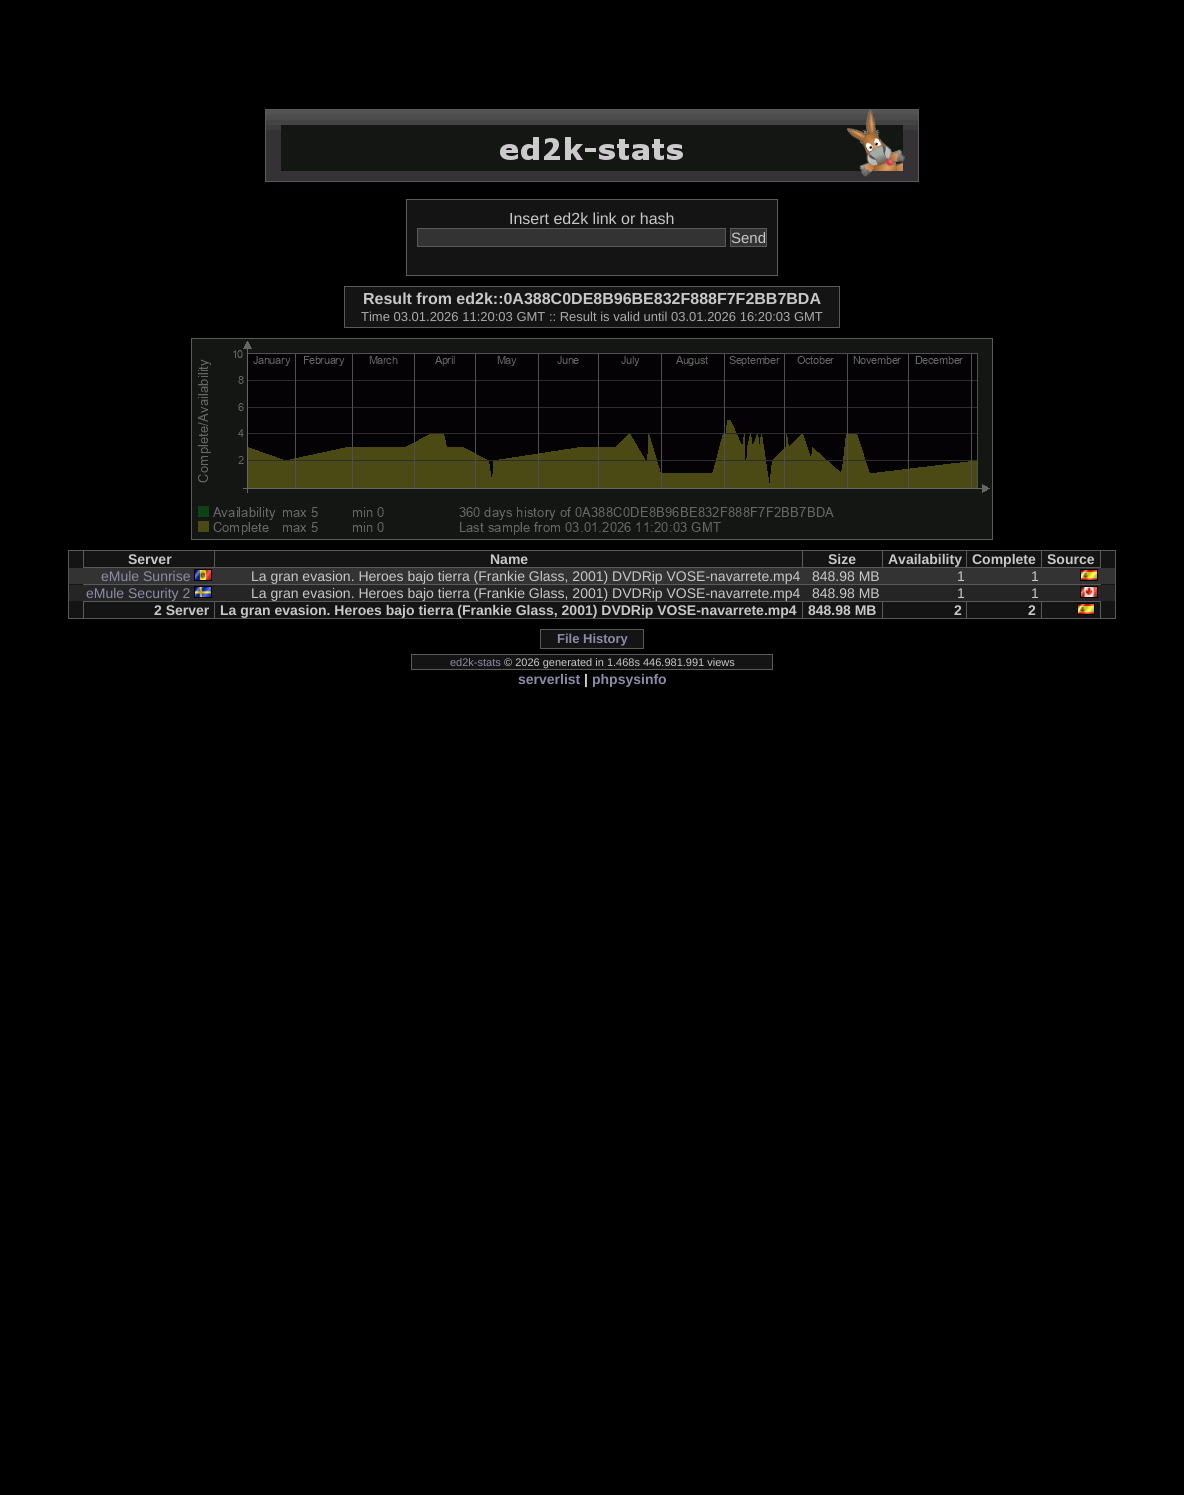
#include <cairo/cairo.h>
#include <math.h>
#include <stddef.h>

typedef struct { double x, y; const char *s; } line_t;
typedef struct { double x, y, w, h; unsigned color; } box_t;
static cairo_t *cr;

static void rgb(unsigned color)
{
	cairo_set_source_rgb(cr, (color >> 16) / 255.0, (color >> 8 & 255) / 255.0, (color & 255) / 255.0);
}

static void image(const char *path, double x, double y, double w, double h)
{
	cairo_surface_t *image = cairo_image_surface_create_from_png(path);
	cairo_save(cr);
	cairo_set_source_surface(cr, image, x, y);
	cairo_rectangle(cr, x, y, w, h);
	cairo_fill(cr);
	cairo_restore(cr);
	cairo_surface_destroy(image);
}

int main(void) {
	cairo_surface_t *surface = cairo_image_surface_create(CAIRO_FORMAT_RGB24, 1184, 1495);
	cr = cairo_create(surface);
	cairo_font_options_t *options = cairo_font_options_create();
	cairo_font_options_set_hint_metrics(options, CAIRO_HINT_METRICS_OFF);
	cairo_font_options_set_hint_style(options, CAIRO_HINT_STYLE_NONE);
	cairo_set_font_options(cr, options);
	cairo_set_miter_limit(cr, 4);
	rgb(0x000000);
	cairo_paint(cr);
	image("img/1.png", 265, 109, 654, 73);
	rgb(0x5a5a5a);
	cairo_rectangle(cr, 406, 199, 372, 77);
	cairo_fill(cr);
	rgb(0x141414);
	cairo_rectangle(cr, 407, 200, 370, 75);
	cairo_fill(cr);
	rgb(0x333333);
	cairo_rectangle(cr, 417.5, 228.5, 308, 18);
	cairo_fill_preserve(cr);
	rgb(0x5a5a5a);
	cairo_set_line_width(cr, 1);
	cairo_stroke(cr);
	rgb(0x333333);
	cairo_rectangle(cr, 730.5, 228.5, 36, 18);
	cairo_fill_preserve(cr);
	rgb(0x5a5a5a);
	cairo_stroke(cr);
	rgb(0x141414);
	cairo_rectangle(cr, 344.5, 286.5, 495, 41);
	cairo_fill_preserve(cr);
	rgb(0x5a5a5a);
	cairo_stroke(cr);
	cairo_rectangle(cr, 191.5, 338.5, 801, 201);
	cairo_stroke(cr);
	image("img/2.png", 192, 339, 800, 200);
	{
		static const box_t items[] = {
			{68, 550, 1048, 69, 0x5a5a5a},
			{69, 551, 14, 67, 0x141414},
			{84, 551, 130, 16, 0x141414},
			{215, 551, 587, 16, 0x141414},
			{803, 551, 79, 16, 0x141414},
			{883, 551, 83, 16, 0x141414},
			{967, 551, 74, 16, 0x141414},
			{1042, 551, 58, 16, 0x141414},
			{1101, 551, 14, 67, 0x141414},
			{69, 568, 1046, 16, 0x333333},
		};
		for (size_t i = 0; i < sizeof items / sizeof *items; i++) {
			rgb(items[i].color);
			cairo_rectangle(cr, items[i].x, items[i].y, items[i].w, items[i].h);
			cairo_fill(cr);
		}
	}
	image("img/3.png", 194, 569, 18, 12);
	image("img/4.png", 1080, 569, 18, 12);
	rgb(0x252525);
	cairo_rectangle(cr, 69, 585, 1046, 16);
	cairo_fill(cr);
	image("img/5.png", 194, 586, 18, 12);
	image("img/6.png", 1080, 586, 18, 12);
	{
		static const box_t items[] = {
			{84, 602, 130, 16, 0x141414},
			{215, 602, 587, 16, 0x141414},
			{803, 602, 79, 16, 0x141414},
			{883, 602, 83, 16, 0x141414},
			{967, 602, 74, 16, 0x141414},
			{1042, 602, 58, 16, 0x141414},
		};
		for (size_t i = 0; i < sizeof items / sizeof *items; i++) {
			rgb(items[i].color);
			cairo_rectangle(cr, items[i].x, items[i].y, items[i].w, items[i].h);
			cairo_fill(cr);
		}
	}
	image("img/4.png", 1077, 603, 18, 12);
	cairo_rectangle(cr, 540.5, 629.5, 103, 19);
	cairo_fill_preserve(cr);
	rgb(0x5a5a5a);
	cairo_stroke(cr);
	rgb(0x141414);
	cairo_rectangle(cr, 411.5, 654.5, 361, 15);
	cairo_fill_preserve(cr);
	rgb(0x5a5a5a);
	cairo_stroke(cr);
	cairo_select_font_face(cr, "Liberation Sans", CAIRO_FONT_SLANT_NORMAL, CAIRO_FONT_WEIGHT_NORMAL);
	cairo_set_font_size(cr, 16);
	rgb(0xc8c8c8);
	cairo_move_to(cr, 509, 224);
	cairo_show_text(cr, "Insert ed2k link or hash");
	cairo_set_font_size(cr, 15);
	cairo_move_to(cr, 731, 243);
	cairo_show_text(cr, "Send");
	cairo_select_font_face(cr, "Liberation Sans", CAIRO_FONT_SLANT_NORMAL, CAIRO_FONT_WEIGHT_BOLD);
	cairo_set_font_size(cr, 16);
	cairo_move_to(cr, 363, 304);
	cairo_show_text(cr, "Result from ed2k::0A388C0DE8B96BE832F888F7F2BB7BDA");
	cairo_select_font_face(cr, "Liberation Sans", CAIRO_FONT_SLANT_NORMAL, CAIRO_FONT_WEIGHT_NORMAL);
	cairo_set_font_size(cr, 13);
	rgb(0xaaaaaa);
	cairo_move_to(cr, 361, 321);
	cairo_show_text(cr, "Time 03.01.2026 11:20:03 GMT :: Result is valid until 03.01.2026 16:20:03 GMT");
	cairo_select_font_face(cr, "Liberation Sans", CAIRO_FONT_SLANT_NORMAL, CAIRO_FONT_WEIGHT_BOLD);
	cairo_set_font_size(cr, 14);
	rgb(0xc8c8c8);
	{
		static const line_t items[] = {
			{128, 564, "Server"},
			{490, 564, "Name"},
			{828, 564, "Size"},
			{888, 564, "Availability"},
			{972, 564, "Complete"},
			{1047, 564, "Source"},
		};
		for (size_t i = 0; i < sizeof items / sizeof *items; i++) {
			cairo_move_to(cr, items[i].x, items[i].y);
			cairo_show_text(cr, items[i].s);
		}
	}
	cairo_select_font_face(cr, "Liberation Sans", CAIRO_FONT_SLANT_NORMAL, CAIRO_FONT_WEIGHT_NORMAL);
	rgb(0x8c8caa);
	cairo_move_to(cr, 101, 581);
	cairo_show_text(cr, "eMule Sunrise");
	rgb(0xc8c8c8);
	{
		static const line_t items[] = {
			{251, 581, "La gran evasion. Heroes bajo tierra (Frankie Glass, 2001) DVDRip VOSE-navarrete.mp4"},
			{812, 581, "848.98 MB"},
			{957, 581, "1"},
			{1031, 581, "1"},
		};
		for (size_t i = 0; i < sizeof items / sizeof *items; i++) {
			cairo_move_to(cr, items[i].x, items[i].y);
			cairo_show_text(cr, items[i].s);
		}
	}
	rgb(0x8c8caa);
	cairo_move_to(cr, 86, 598);
	cairo_show_text(cr, "eMule Security 2");
	rgb(0xc8c8c8);
	{
		static const line_t items[] = {
			{251, 598, "La gran evasion. Heroes bajo tierra (Frankie Glass, 2001) DVDRip VOSE-navarrete.mp4"},
			{812, 598, "848.98 MB"},
			{957, 598, "1"},
			{1031, 598, "1"},
		};
		for (size_t i = 0; i < sizeof items / sizeof *items; i++) {
			cairo_move_to(cr, items[i].x, items[i].y);
			cairo_show_text(cr, items[i].s);
		}
	}
	cairo_select_font_face(cr, "Liberation Sans", CAIRO_FONT_SLANT_NORMAL, CAIRO_FONT_WEIGHT_BOLD);
	{
		static const line_t items[] = {
			{154, 615, "2 Server"},
			{220, 615, "La gran evasion. Heroes bajo tierra (Frankie Glass, 2001) DVDRip VOSE-navarrete.mp4"},
			{808, 615, "848.98 MB"},
			{954, 615, "2"},
			{1028, 615, "2"},
		};
		for (size_t i = 0; i < sizeof items / sizeof *items; i++) {
			cairo_move_to(cr, items[i].x, items[i].y);
			cairo_show_text(cr, items[i].s);
		}
	}
	cairo_set_font_size(cr, 13);
	rgb(0x8c8caa);
	cairo_move_to(cr, 557, 643);
	cairo_show_text(cr, "File History");
	cairo_select_font_face(cr, "Liberation Sans", CAIRO_FONT_SLANT_NORMAL, CAIRO_FONT_WEIGHT_NORMAL);
	cairo_set_font_size(cr, 11);
	cairo_move_to(cr, 450, 666);
	cairo_show_text(cr, "ed2k-stats");
	rgb(0xc8c8c8);
	cairo_move_to(cr, 504, 666);
	cairo_show_text(cr, "© 2026 generated in 1.468s 446.981.991 views");
	cairo_select_font_face(cr, "Liberation Sans", CAIRO_FONT_SLANT_NORMAL, CAIRO_FONT_WEIGHT_BOLD);
	cairo_set_font_size(cr, 14);
	rgb(0x8c8caa);
	cairo_move_to(cr, 518, 684);
	cairo_show_text(cr, "serverlist");
	rgb(0xdadada);
	cairo_move_to(cr, 584, 684);
	cairo_show_text(cr, "|");
	rgb(0x8c8caa);
	cairo_move_to(cr, 592, 684);
	cairo_show_text(cr, "phpsysinfo");
	cairo_surface_write_to_png(surface, "page.png");
	cairo_font_options_destroy(options);
	cairo_destroy(cr);
	cairo_surface_destroy(surface);
	return 0;
}
